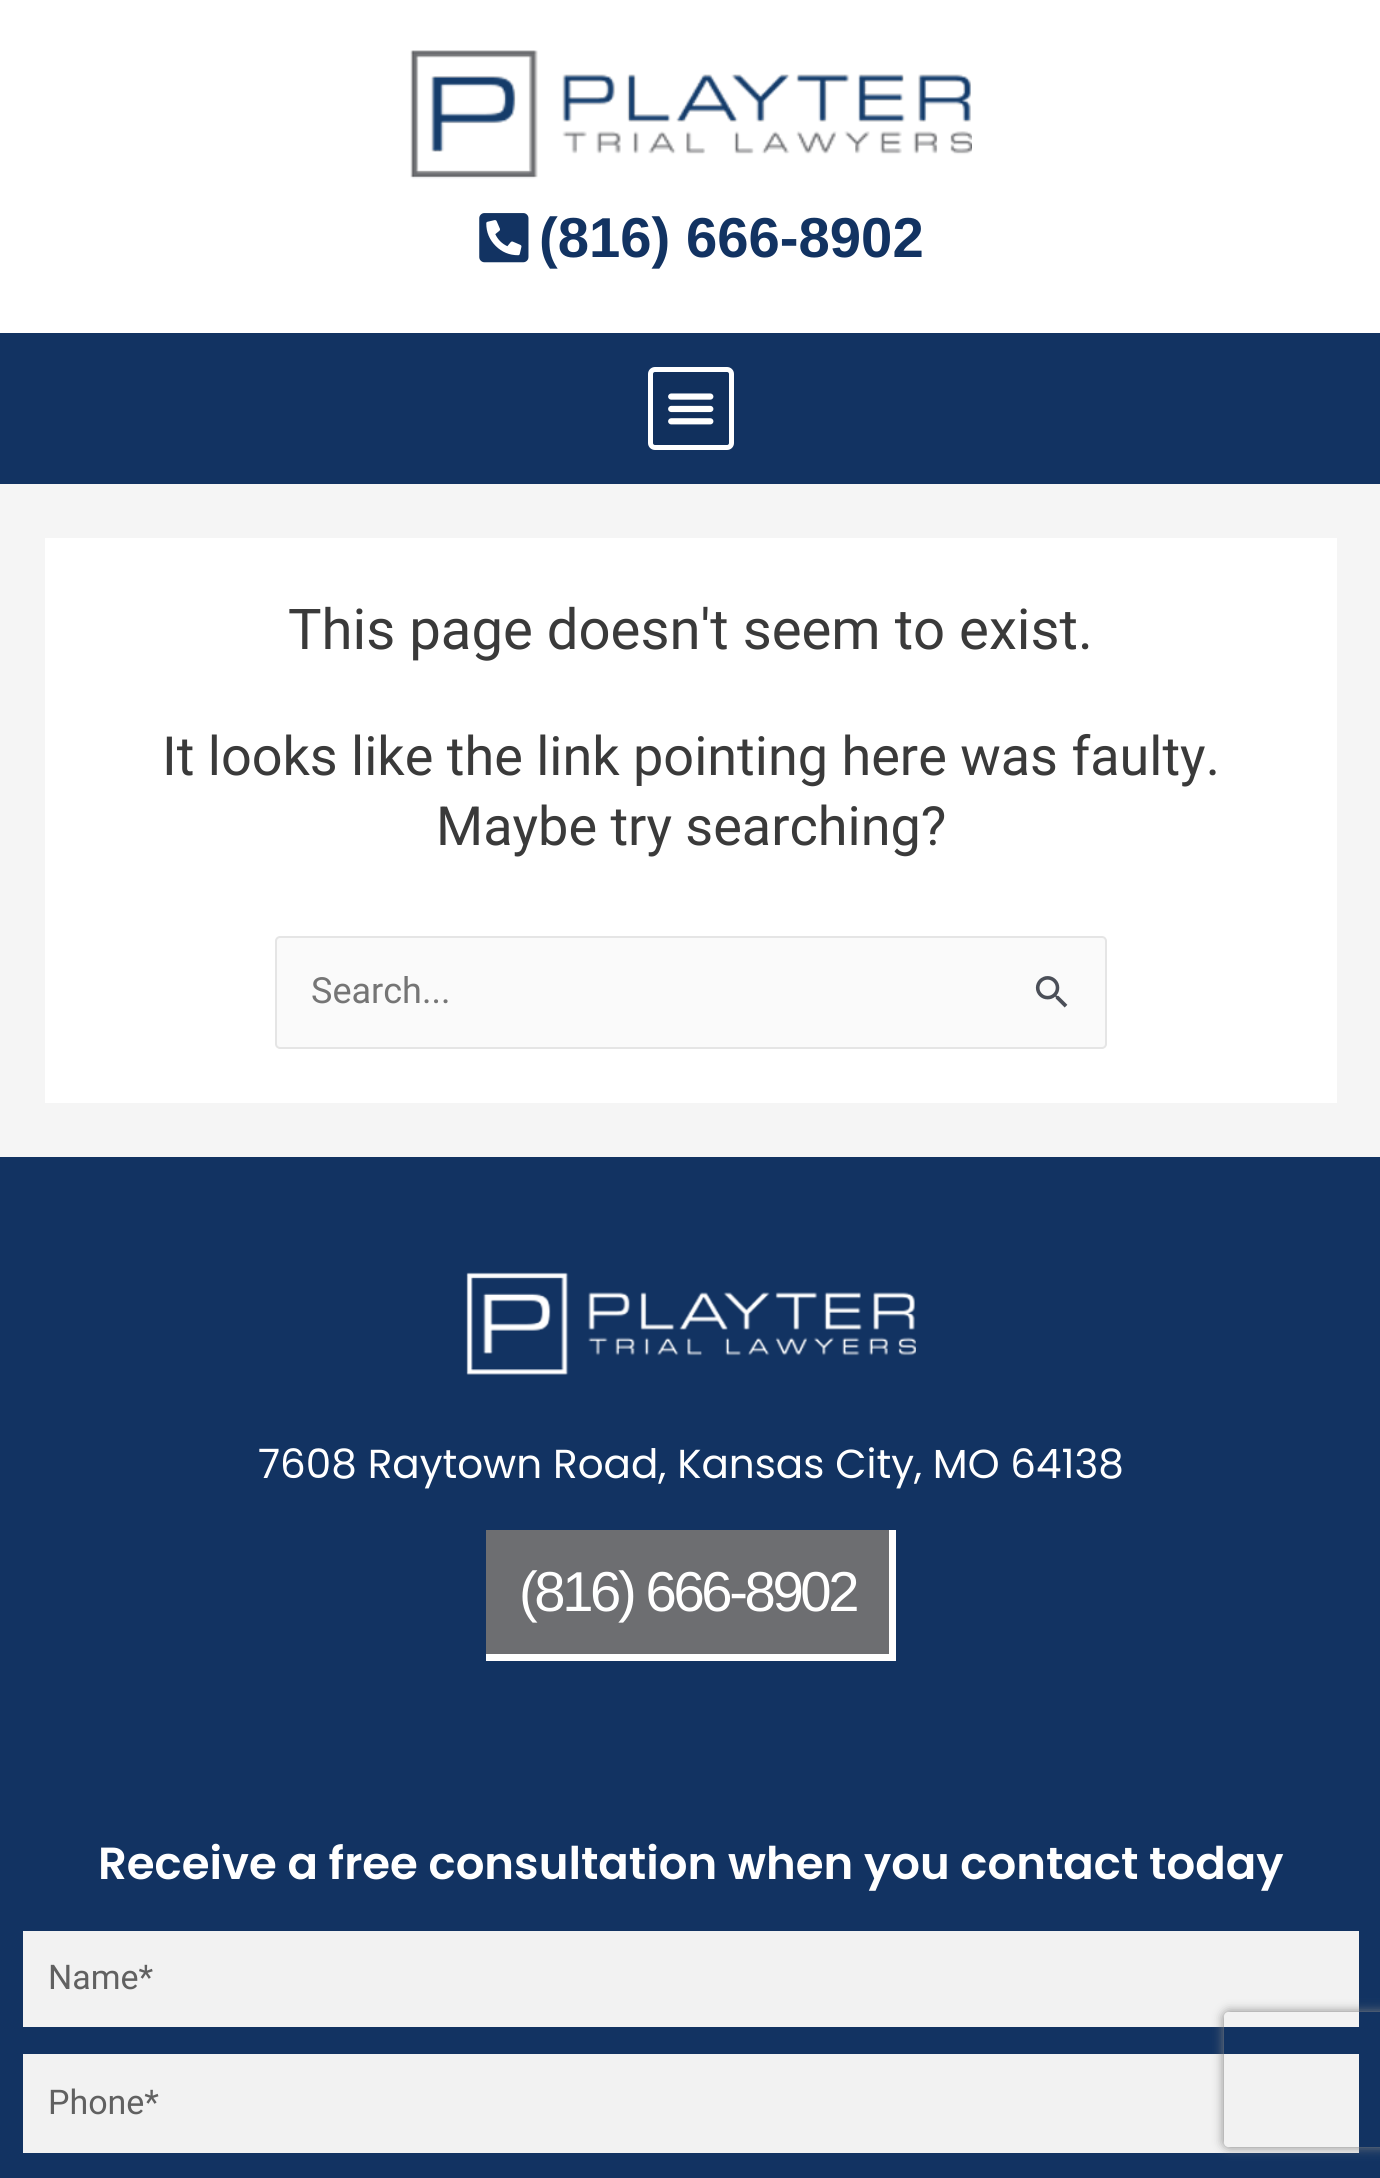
#include <cairo/cairo.h>
#include <math.h>
#include <stddef.h>

typedef struct { double x, y, w, h; unsigned color; } box_t;
static cairo_t *cr;

static void rgb(unsigned color)
{
	cairo_set_source_rgb(cr, (color >> 16) / 255.0, (color >> 8 & 255) / 255.0, (color & 255) / 255.0);
}

static void tracked(double x, double y, const char *s, double letter, double word)
{
	cairo_move_to(cr, x, y);
	while (*s) {
		char ch[5] = {0};
		int n = 0;
		do ch[n++] = *s++; while ((*s & 0xC0) == 0x80);
		cairo_show_text(cr, ch);
		cairo_rel_move_to(cr, letter + word * (*ch == ' '), 0);
	}
}

static void rrect(double x, double y, double w, double h, double r)
{
	cairo_new_sub_path(cr);
	cairo_arc(cr, x + w - r, y + h - r, r, 0, M_PI / 2);
	cairo_arc(cr, x + r, y + h - r, r, M_PI / 2, M_PI);
	cairo_arc(cr, x + r, y + r, r, M_PI, 1.5 * M_PI);
	cairo_arc(cr, x + w - r, y + r, r, 1.5 * M_PI, 2 * M_PI);
	cairo_close_path(cr);
}

static void soft_shadow(double x, double y, double w, double h, double r, double blur, double alpha)
{
	cairo_push_group_with_content(cr, CAIRO_CONTENT_ALPHA);
	cairo_set_operator(cr, CAIRO_OPERATOR_SOURCE);
	for (int i = 15; i >= -15 && fmin(w, h) + blur * i / 3 > 0; i -= 2) {
		double e = blur * i / 6;
		cairo_set_source_rgba(cr, 0, 0, 0, alpha * erfc((i - 1) / 8.5) / 2);
		rrect(x - e, y - e, w + 2 * e, h + 2 * e, fmax(0, fmin(r + e + blur * .6, fmin(w, h) / 2 + e)));
		cairo_fill(cr);
	}
	cairo_pattern_t *soft = cairo_pop_group(cr);
	cairo_mask(cr, soft);
	cairo_pattern_destroy(soft);
}

static void image(const char *path, double x, double y, double w, double h)
{
	cairo_surface_t *image = cairo_image_surface_create_from_png(path);
	cairo_save(cr);
	cairo_set_source_surface(cr, image, x, y);
	cairo_rectangle(cr, x, y, w, h);
	cairo_fill(cr);
	cairo_restore(cr);
	cairo_surface_destroy(image);
}

int main(void) {
	cairo_surface_t *surface = cairo_image_surface_create(CAIRO_FORMAT_RGB24, 1380, 2178);
	cr = cairo_create(surface);
	cairo_font_options_t *options = cairo_font_options_create();
	cairo_font_options_set_hint_metrics(options, CAIRO_HINT_METRICS_OFF);
	cairo_font_options_set_hint_style(options, CAIRO_HINT_STYLE_NONE);
	cairo_set_font_options(cr, options);
	cairo_set_miter_limit(cr, 4);
	rgb(0xf5f5f5);
	cairo_paint(cr);
	rgb(0xffffff);
	cairo_rectangle(cr, 0, 0, 1380, 333);
	cairo_fill(cr);
	image("img/1.png", 410, 50, 562, 129);
	image("img/2.png", 479, 213, 50, 50);
	rgb(0x123362);
	cairo_rectangle(cr, 0, 333, 1380, 151);
	cairo_fill(cr);
	rgb(0x11305d);
	rrect(650.5, 369.5, 81, 78, 4.5);
	cairo_fill_preserve(cr);
	rgb(0xffffff);
	cairo_set_line_width(cr, 5);
	cairo_stroke(cr);
	image("img/3.png", 668, 393, 46, 32);
	cairo_rectangle(cr, 45, 538, 1292, 565);
	cairo_fill(cr);
	rgb(0xfafafa);
	rrect(276, 937, 830, 111, 4);
	cairo_fill_preserve(cr);
	rgb(0xe5e5e5);
	cairo_set_line_width(cr, 2);
	cairo_stroke(cr);
	image("img/4.png", 1035, 976, 33, 32);
	rgb(0x123362);
	cairo_rectangle(cr, 0, 1157, 1380, 1021);
	cairo_fill(cr);
	image("img/5.png", 466, 1272, 450, 103);
	{
		static const box_t items[] = {
			{486, 1530, 403, 124, 0x6d6e71},
			{889, 1530, 7, 131, 0xffffff},
			{486, 1654, 410, 7, 0xffffff},
			{23, 1931, 1336, 96, 0xf2f2f2},
			{23, 2054, 1336, 99, 0xf2f2f2},
		};
		for (size_t i = 0; i < sizeof items / sizeof *items; i++) {
			rgb(items[i].color);
			cairo_rectangle(cr, items[i].x, items[i].y, items[i].w, items[i].h);
			cairo_fill(cr);
		}
	}
	cairo_save(cr);
	cairo_set_fill_rule(cr, CAIRO_FILL_RULE_EVEN_ODD);
	cairo_new_path(cr);
	cairo_move_to(cr, 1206, 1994);
	cairo_line_to(cr, 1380, 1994);
	cairo_line_to(cr, 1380, 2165);
	cairo_line_to(cr, 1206, 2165);
	cairo_close_path(cr);
	cairo_move_to(cr, 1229, 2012);
	cairo_line_to(cr, 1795, 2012);
	cairo_curve_to(cr, 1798, 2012, 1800, 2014, 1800, 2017);
	cairo_line_to(cr, 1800, 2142);
	cairo_curve_to(cr, 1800, 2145, 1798, 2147, 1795, 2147);
	cairo_line_to(cr, 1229, 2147);
	cairo_curve_to(cr, 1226, 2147, 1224, 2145, 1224, 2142);
	cairo_line_to(cr, 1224, 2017);
	cairo_curve_to(cr, 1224, 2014, 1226, 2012, 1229, 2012);
	cairo_close_path(cr);
	cairo_clip(cr);
	rgb(0x808080);
	soft_shadow(1224, 2012, 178, 135, 5, 5.5, 1);
	cairo_restore(cr);
	cairo_select_font_face(cr, "Liberation Sans", CAIRO_FONT_SLANT_NORMAL, CAIRO_FONT_WEIGHT_BOLD);
	cairo_set_font_size(cr, 56.25);
	rgb(0x123362);
	cairo_move_to(cr, 539, 257);
	cairo_show_text(cr, "(816) 666-8902");
	cairo_select_font_face(cr, "Roboto", CAIRO_FONT_SLANT_NORMAL, CAIRO_FONT_WEIGHT_NORMAL);
	rgb(0x3a3a3a);
	cairo_move_to(cr, 288, 649);
	cairo_show_text(cr, "This page doesn't seem to exist.");
	cairo_set_font_size(cr, 54);
	cairo_move_to(cr, 162, 775);
	cairo_show_text(cr, "It looks like the link pointing here was faulty.");
	cairo_move_to(cr, 436, 845);
	cairo_show_text(cr, "Maybe try searching?");
	cairo_set_font_size(cr, 36);
	rgb(0x757575);
	cairo_move_to(cr, 311, 1003);
	cairo_show_text(cr, "Search...");
	cairo_select_font_face(cr, "Poppins", CAIRO_FONT_SLANT_NORMAL, CAIRO_FONT_WEIGHT_NORMAL);
	cairo_set_font_size(cr, 40.5);
	rgb(0xffffff);
	cairo_move_to(cr, 258, 1478);
	cairo_show_text(cr, "7608 Raytown Road, Kansas City, MO 64138");
	cairo_select_font_face(cr, "Liberation Sans", CAIRO_FONT_SLANT_NORMAL, CAIRO_FONT_WEIGHT_NORMAL);
	cairo_set_font_size(cr, 56.25);
	tracked(519, 1611, "(816) 666-8902", -3.4, 0);
	cairo_select_font_face(cr, "Poppins SemiBold", CAIRO_FONT_SLANT_NORMAL, CAIRO_FONT_WEIGHT_NORMAL);
	cairo_set_font_size(cr, 45);
	cairo_move_to(cr, 98, 1879);
	cairo_show_text(cr, "Receive a free consultation when you contact today");
	cairo_select_font_face(cr, "Roboto", CAIRO_FONT_SLANT_NORMAL, CAIRO_FONT_WEIGHT_NORMAL);
	cairo_set_font_size(cr, 34);
	rgb(0x616161);
	cairo_move_to(cr, 48, 1989);
	cairo_show_text(cr, "Name*");
	cairo_move_to(cr, 48, 2114);
	cairo_show_text(cr, "Phone*");
	cairo_surface_write_to_png(surface, "page.png");
	cairo_font_options_destroy(options);
	cairo_destroy(cr);
	cairo_surface_destroy(surface);
	return 0;
}
